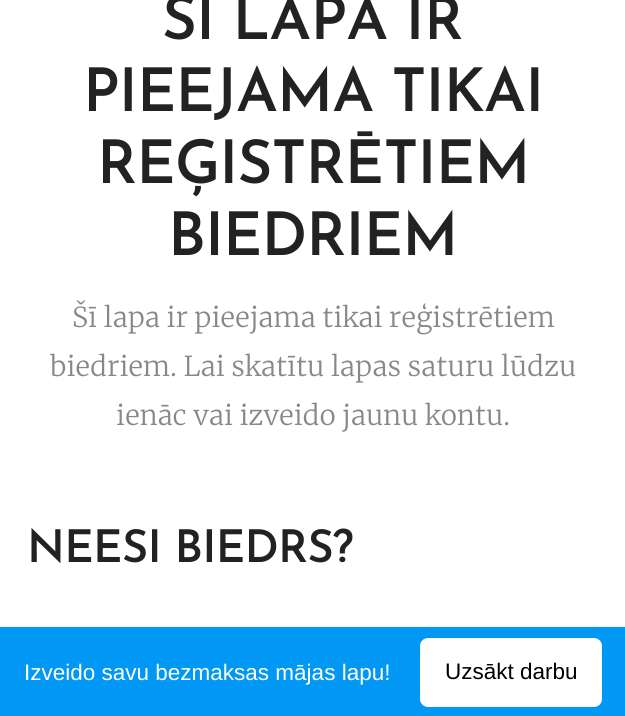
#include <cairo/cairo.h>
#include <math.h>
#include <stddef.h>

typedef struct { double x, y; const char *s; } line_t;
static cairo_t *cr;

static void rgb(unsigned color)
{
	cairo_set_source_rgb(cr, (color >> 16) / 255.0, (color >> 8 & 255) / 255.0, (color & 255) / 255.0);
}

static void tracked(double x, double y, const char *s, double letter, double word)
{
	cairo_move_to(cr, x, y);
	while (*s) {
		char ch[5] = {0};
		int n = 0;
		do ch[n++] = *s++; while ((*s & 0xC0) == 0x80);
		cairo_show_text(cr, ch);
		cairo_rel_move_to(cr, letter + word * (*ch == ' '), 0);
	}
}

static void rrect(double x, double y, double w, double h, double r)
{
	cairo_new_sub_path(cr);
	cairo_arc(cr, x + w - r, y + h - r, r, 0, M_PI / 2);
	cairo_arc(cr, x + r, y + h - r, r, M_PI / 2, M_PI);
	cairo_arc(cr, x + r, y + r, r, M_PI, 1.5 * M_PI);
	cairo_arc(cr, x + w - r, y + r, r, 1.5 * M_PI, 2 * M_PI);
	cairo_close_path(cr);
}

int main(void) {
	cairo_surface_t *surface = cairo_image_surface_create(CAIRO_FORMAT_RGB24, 625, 716);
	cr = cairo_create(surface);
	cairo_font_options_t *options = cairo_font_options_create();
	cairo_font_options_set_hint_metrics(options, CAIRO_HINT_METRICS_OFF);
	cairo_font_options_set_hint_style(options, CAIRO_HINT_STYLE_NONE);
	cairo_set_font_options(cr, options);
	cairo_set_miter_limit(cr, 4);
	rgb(0xffffff);
	cairo_paint(cr);
	rgb(0x0097f5);
	cairo_rectangle(cr, 0, 627, 625, 89);
	cairo_fill(cr);
	rgb(0xffffff);
	rrect(420, 638, 182, 69, 8);
	cairo_fill(cr);
	cairo_select_font_face(cr, "Josefin Sans SemiBold", CAIRO_FONT_SLANT_NORMAL, CAIRO_FONT_WEIGHT_NORMAL);
	cairo_set_font_size(cr, 60);
	rgb(0x222222);
	{
		static const line_t items[] = {
			{162, 39, "ŠĪ LAPA IR"},
			{83, 111, "PIEEJAMA TIKAI"},
			{97, 183, "REĢISTRĒTIEM"},
			{168, 255, "BIEDRIEM"},
		};
		for (size_t i = 0; i < sizeof items / sizeof *items; i++) {
			tracked(items[i].x, items[i].y, items[i].s, -0.9, 0);
		}
	}
	cairo_select_font_face(cr, "Merriweather Light", CAIRO_FONT_SLANT_NORMAL, CAIRO_FONT_WEIGHT_NORMAL);
	cairo_set_font_size(cr, 27.4);
	rgb(0x888888);
	{
		static const line_t items[] = {
			{72, 327, "Šī lapa ir pieejama tikai reģistrētiem"},
			{50, 376, "biedriem. Lai skatītu lapas saturu lūdzu"},
			{116, 425, "ienāc vai izveido jaunu kontu."},
		};
		for (size_t i = 0; i < sizeof items / sizeof *items; i++) {
			cairo_move_to(cr, items[i].x, items[i].y);
			cairo_show_text(cr, items[i].s);
		}
	}
	cairo_select_font_face(cr, "Josefin Sans SemiBold", CAIRO_FONT_SLANT_NORMAL, CAIRO_FONT_WEIGHT_NORMAL);
	cairo_set_font_size(cr, 45);
	rgb(0x222222);
	tracked(27, 562, "NEESI BIEDRS?", -0.75, 0);
	cairo_select_font_face(cr, "Liberation Sans", CAIRO_FONT_SLANT_NORMAL, CAIRO_FONT_WEIGHT_NORMAL);
	cairo_set_font_size(cr, 22.5);
	rgb(0xffffff);
	cairo_move_to(cr, 24, 680);
	cairo_show_text(cr, "Izveido savu bezmaksas mājas lapu!");
	rgb(0x000000);
	cairo_move_to(cr, 445, 679);
	cairo_show_text(cr, "Uzsākt darbu");
	cairo_surface_write_to_png(surface, "page.png");
	cairo_font_options_destroy(options);
	cairo_destroy(cr);
	cairo_surface_destroy(surface);
	return 0;
}
